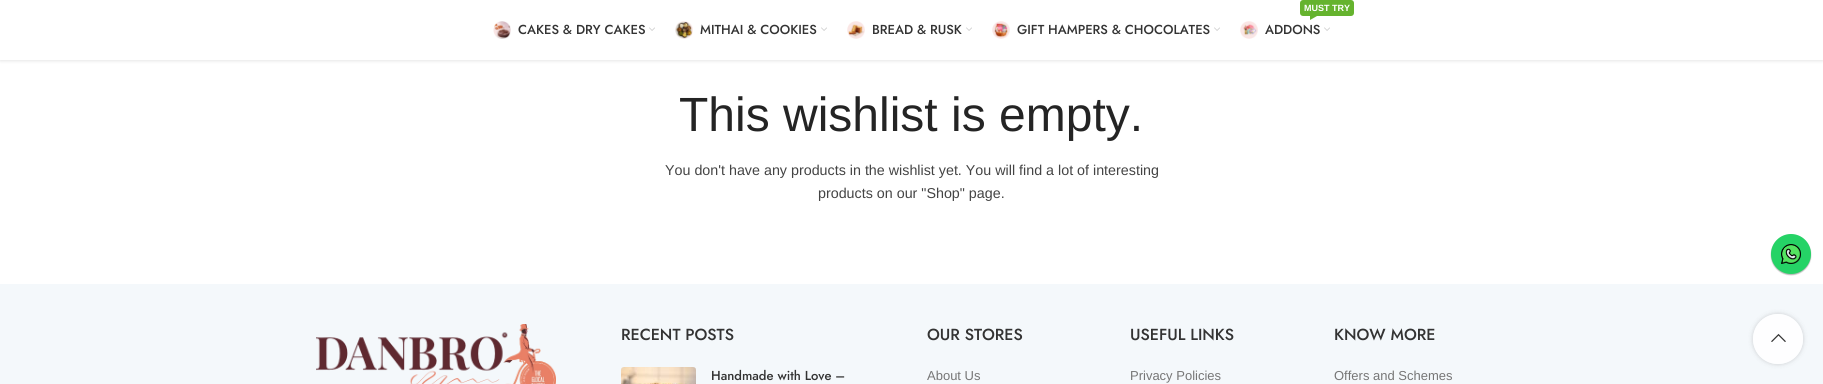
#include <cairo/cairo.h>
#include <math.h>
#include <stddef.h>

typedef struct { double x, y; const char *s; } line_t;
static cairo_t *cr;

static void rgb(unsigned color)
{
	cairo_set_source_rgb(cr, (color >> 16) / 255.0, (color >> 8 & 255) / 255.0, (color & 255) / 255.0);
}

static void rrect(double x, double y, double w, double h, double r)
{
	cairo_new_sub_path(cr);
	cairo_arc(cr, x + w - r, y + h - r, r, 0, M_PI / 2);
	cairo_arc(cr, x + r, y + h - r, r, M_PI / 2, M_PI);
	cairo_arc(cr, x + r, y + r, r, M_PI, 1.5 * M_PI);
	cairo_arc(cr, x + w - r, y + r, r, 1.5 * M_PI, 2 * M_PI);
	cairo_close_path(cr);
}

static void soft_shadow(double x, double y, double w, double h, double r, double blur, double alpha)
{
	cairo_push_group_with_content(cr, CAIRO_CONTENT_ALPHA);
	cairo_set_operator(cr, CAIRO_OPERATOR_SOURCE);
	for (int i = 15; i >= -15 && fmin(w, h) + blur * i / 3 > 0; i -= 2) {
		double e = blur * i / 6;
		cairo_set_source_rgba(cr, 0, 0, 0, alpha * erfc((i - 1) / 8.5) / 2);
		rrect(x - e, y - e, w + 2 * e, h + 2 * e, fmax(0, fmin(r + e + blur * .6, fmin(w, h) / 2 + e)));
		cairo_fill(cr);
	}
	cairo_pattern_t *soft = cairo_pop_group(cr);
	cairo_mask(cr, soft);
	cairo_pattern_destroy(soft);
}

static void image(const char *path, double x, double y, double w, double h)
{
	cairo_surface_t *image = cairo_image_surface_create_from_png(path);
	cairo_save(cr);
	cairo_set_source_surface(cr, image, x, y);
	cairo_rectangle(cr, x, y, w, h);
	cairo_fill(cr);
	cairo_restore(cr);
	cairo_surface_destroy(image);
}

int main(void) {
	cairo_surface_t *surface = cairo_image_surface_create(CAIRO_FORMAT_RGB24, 1823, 384);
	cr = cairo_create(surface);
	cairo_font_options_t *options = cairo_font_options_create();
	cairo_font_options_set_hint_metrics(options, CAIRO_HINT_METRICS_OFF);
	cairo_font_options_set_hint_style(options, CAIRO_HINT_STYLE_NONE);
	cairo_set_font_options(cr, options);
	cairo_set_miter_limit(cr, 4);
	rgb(0xffffff);
	cairo_paint(cr);
	rgb(0x000000);
	soft_shadow(0, 1, 1823, 60, 0, 1.5, 0.1);
	rgb(0xffffff);
	cairo_rectangle(cr, 0, 0, 1823, 60);
	cairo_fill(cr);
	image("img/1.png", 493, 21, 18, 18);
	image("img/2.png", 649, 27, 6, 4);
	image("img/3.png", 675, 21, 18, 18);
	image("img/2.png", 821, 27, 6, 4);
	image("img/4.png", 847, 21, 18, 18);
	image("img/2.png", 966, 27, 6, 4);
	image("img/5.png", 992, 21, 18, 18);
	image("img/2.png", 1214, 27, 6, 4);
	rgb(0x65b32e);
	rrect(1300, 0, 54, 16, 3);
	cairo_fill(cr);
	cairo_new_path(cr);
	cairo_move_to(cr, 1310, 16);
	cairo_line_to(cr, 1317, 16);
	cairo_line_to(cr, 1310, 20);
	cairo_close_path(cr);
	cairo_fill(cr);
	image("img/6.png", 1240, 21, 18, 18);
	image("img/2.png", 1324, 27, 6, 4);
	rgb(0xf4f8fb);
	cairo_rectangle(cr, 0, 284, 1823, 100);
	cairo_fill(cr);
	image("img/7.png", 316, 324, 240, 60);
	image("img/8.png", 621, 367, 75, 17);
	rgb(0x000000);
	soft_shadow(1771, 235, 40, 40, 20, 0.5, 0.3);
	rgb(0x25d366);
	cairo_arc(cr, 1791, 254, 20, 0, 2 * M_PI);
	cairo_fill(cr);
	image("img/9.png", 1781, 244, 20, 20);
	cairo_save(cr);
	cairo_set_fill_rule(cr, CAIRO_FILL_RULE_EVEN_ODD);
	cairo_new_path(cr);
	cairo_move_to(cr, 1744, 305);
	cairo_line_to(cr, 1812, 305);
	cairo_line_to(cr, 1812, 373);
	cairo_line_to(cr, 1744, 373);
	cairo_close_path(cr);
	cairo_move_to(cr, 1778, 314);
	cairo_curve_to(cr, 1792, 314, 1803, 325, 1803, 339);
	cairo_curve_to(cr, 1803, 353, 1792, 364, 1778, 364);
	cairo_curve_to(cr, 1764, 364, 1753, 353, 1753, 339);
	cairo_curve_to(cr, 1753, 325, 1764, 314, 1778, 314);
	cairo_close_path(cr);
	cairo_clip(cr);
	rgb(0x000000);
	soft_shadow(1753, 314, 50, 50, 25, 2.5, 0.17);
	cairo_restore(cr);
	cairo_set_source_rgba(cr, 1, 1, 1, 0.9);
	cairo_arc(cr, 1778, 339, 25, 0, 2 * M_PI);
	cairo_fill(cr);
	image("img/10.png", 1771, 333, 15, 9);
	cairo_select_font_face(cr, "Jost Medium", CAIRO_FONT_SLANT_NORMAL, CAIRO_FONT_WEIGHT_NORMAL);
	cairo_set_font_size(cr, 13);
	rgb(0x333333);
	{
		static const line_t items[] = {
			{518, 34, "CAKES & DRY CAKES"},
			{700, 34, "MITHAI & COOKIES"},
			{872, 34, "BREAD & RUSK"},
			{1017, 34, "GIFT HAMPERS & CHOCOLATES"},
		};
		for (size_t i = 0; i < sizeof items / sizeof *items; i++) {
			cairo_move_to(cr, items[i].x, items[i].y);
			cairo_show_text(cr, items[i].s);
		}
	}
	cairo_select_font_face(cr, "Liberation Sans", CAIRO_FONT_SLANT_NORMAL, CAIRO_FONT_WEIGHT_BOLD);
	cairo_set_font_size(cr, 9);
	rgb(0xffffff);
	cairo_move_to(cr, 1304, 11);
	cairo_show_text(cr, "MUST TRY");
	cairo_select_font_face(cr, "Jost Medium", CAIRO_FONT_SLANT_NORMAL, CAIRO_FONT_WEIGHT_NORMAL);
	cairo_set_font_size(cr, 13);
	rgb(0x333333);
	cairo_move_to(cr, 1265, 34);
	cairo_show_text(cr, "ADDONS");
	cairo_select_font_face(cr, "Liberation Sans", CAIRO_FONT_SLANT_NORMAL, CAIRO_FONT_WEIGHT_NORMAL);
	cairo_set_font_size(cr, 48);
	rgb(0x242424);
	cairo_move_to(cr, 679, 131);
	cairo_show_text(cr, "This wishlist is empty.");
	cairo_set_font_size(cr, 14.3);
	rgb(0x444444);
	cairo_move_to(cr, 665, 175);
	cairo_show_text(cr, "You don't have any products in the wishlist yet. You will find a lot of interesting");
	cairo_move_to(cr, 818, 198);
	cairo_show_text(cr, "products on our \"Shop\" page.");
	cairo_select_font_face(cr, "Jost Medium", CAIRO_FONT_SLANT_NORMAL, CAIRO_FONT_WEIGHT_NORMAL);
	cairo_set_font_size(cr, 16);
	rgb(0x333333);
	cairo_move_to(cr, 621, 340);
	cairo_show_text(cr, "RECENT POSTS");
	cairo_set_font_size(cr, 13);
	cairo_move_to(cr, 711, 380);
	cairo_show_text(cr, "Handmade with Love –");
	cairo_set_font_size(cr, 16);
	cairo_move_to(cr, 927, 340);
	cairo_show_text(cr, "OUR STORES");
	cairo_select_font_face(cr, "Liberation Sans", CAIRO_FONT_SLANT_NORMAL, CAIRO_FONT_WEIGHT_NORMAL);
	cairo_set_font_size(cr, 13);
	rgb(0x767676);
	cairo_move_to(cr, 927, 380);
	cairo_show_text(cr, "About Us");
	cairo_select_font_face(cr, "Jost Medium", CAIRO_FONT_SLANT_NORMAL, CAIRO_FONT_WEIGHT_NORMAL);
	cairo_set_font_size(cr, 16);
	rgb(0x333333);
	cairo_move_to(cr, 1130, 340);
	cairo_show_text(cr, "USEFUL LINKS");
	cairo_select_font_face(cr, "Liberation Sans", CAIRO_FONT_SLANT_NORMAL, CAIRO_FONT_WEIGHT_NORMAL);
	cairo_set_font_size(cr, 13);
	rgb(0x767676);
	cairo_move_to(cr, 1130, 380);
	cairo_show_text(cr, "Privacy Policies");
	cairo_select_font_face(cr, "Jost Medium", CAIRO_FONT_SLANT_NORMAL, CAIRO_FONT_WEIGHT_NORMAL);
	cairo_set_font_size(cr, 16);
	rgb(0x333333);
	cairo_move_to(cr, 1334, 340);
	cairo_show_text(cr, "KNOW MORE");
	cairo_select_font_face(cr, "Liberation Sans", CAIRO_FONT_SLANT_NORMAL, CAIRO_FONT_WEIGHT_NORMAL);
	cairo_set_font_size(cr, 13);
	rgb(0x767676);
	cairo_move_to(cr, 1334, 380);
	cairo_show_text(cr, "Offers and Schemes");
	cairo_surface_write_to_png(surface, "page.png");
	cairo_font_options_destroy(options);
	cairo_destroy(cr);
	cairo_surface_destroy(surface);
	return 0;
}
